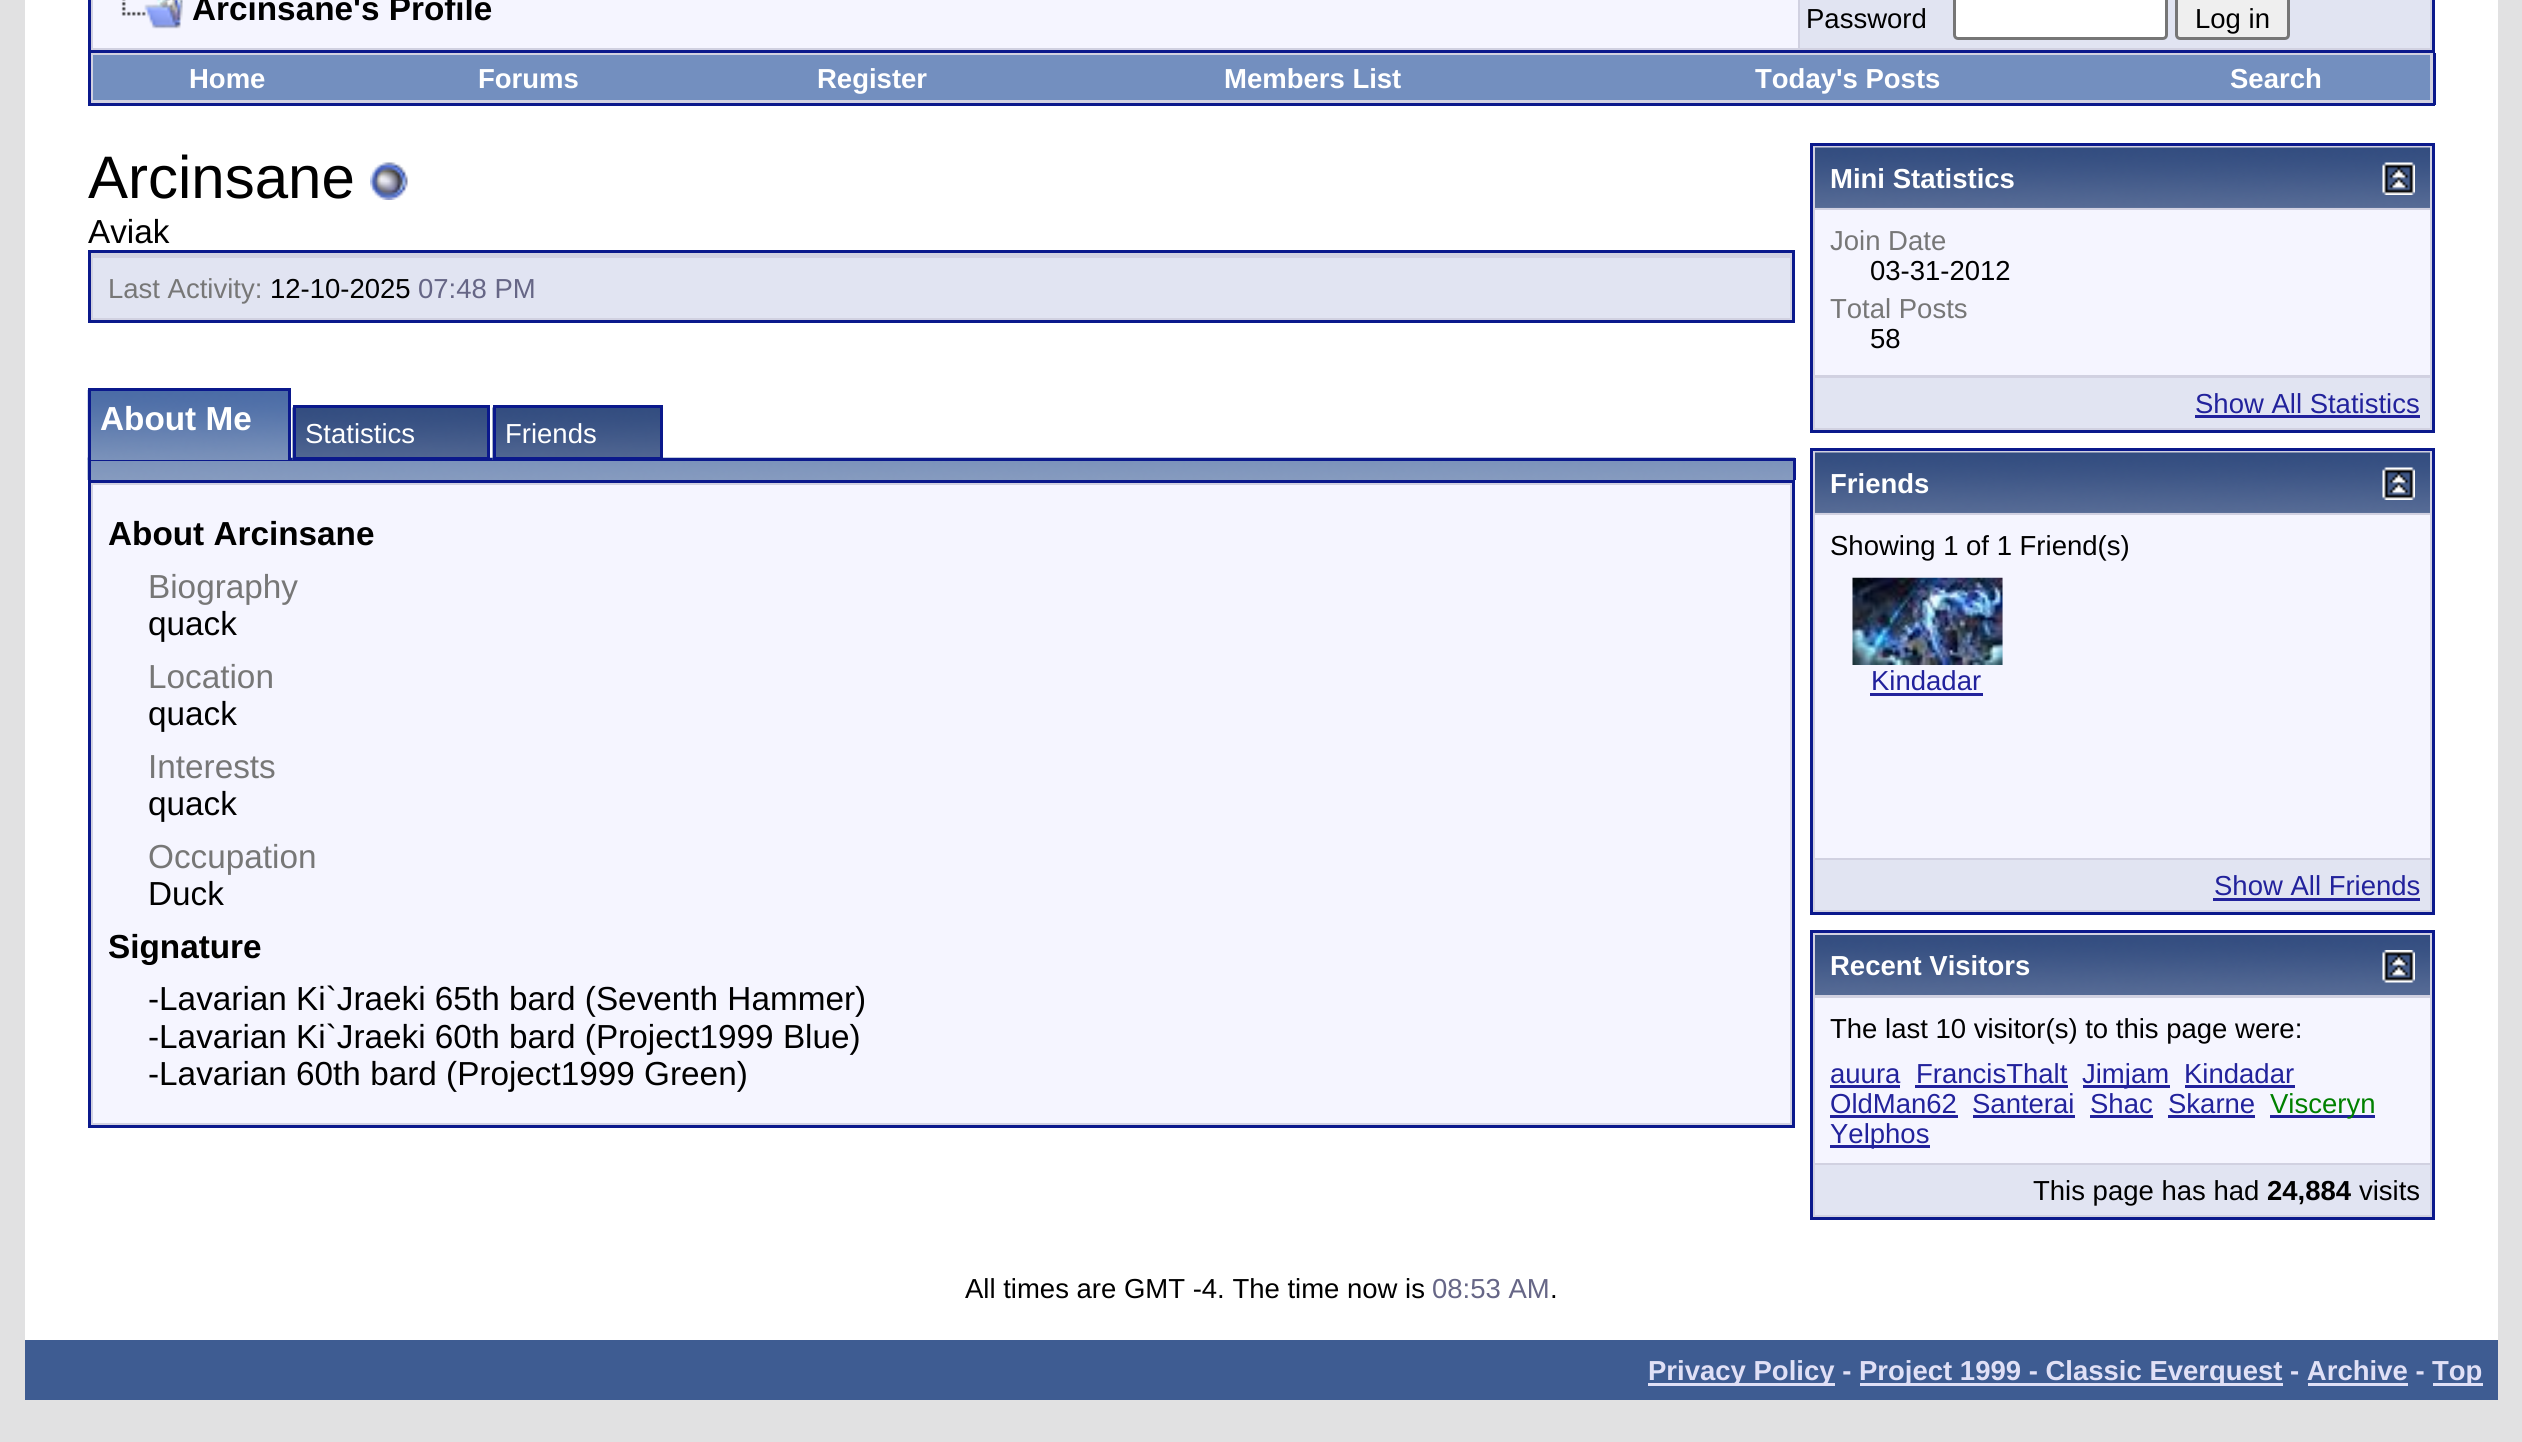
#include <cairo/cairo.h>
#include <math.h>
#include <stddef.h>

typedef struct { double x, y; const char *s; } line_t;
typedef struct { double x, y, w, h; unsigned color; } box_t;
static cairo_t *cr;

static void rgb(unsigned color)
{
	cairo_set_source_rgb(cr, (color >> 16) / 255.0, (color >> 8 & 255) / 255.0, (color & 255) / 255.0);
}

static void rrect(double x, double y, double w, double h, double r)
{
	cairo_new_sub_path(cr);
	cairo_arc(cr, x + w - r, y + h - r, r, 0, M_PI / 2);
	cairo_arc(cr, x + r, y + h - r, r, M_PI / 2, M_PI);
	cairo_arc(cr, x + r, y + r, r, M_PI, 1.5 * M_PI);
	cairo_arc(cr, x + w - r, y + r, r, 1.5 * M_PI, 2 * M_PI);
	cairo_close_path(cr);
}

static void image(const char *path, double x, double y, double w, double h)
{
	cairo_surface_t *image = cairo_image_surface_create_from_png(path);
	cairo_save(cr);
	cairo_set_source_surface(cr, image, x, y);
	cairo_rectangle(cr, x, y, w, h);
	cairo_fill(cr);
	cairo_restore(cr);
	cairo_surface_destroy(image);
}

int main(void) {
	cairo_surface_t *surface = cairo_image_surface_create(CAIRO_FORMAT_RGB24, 2522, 1442);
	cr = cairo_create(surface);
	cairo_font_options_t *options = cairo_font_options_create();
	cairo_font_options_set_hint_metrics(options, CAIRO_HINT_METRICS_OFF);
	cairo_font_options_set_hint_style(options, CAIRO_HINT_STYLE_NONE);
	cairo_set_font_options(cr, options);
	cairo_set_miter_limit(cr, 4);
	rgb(0xe1e1e2);
	cairo_paint(cr);
	rgb(0xffffff);
	cairo_rectangle(cr, 25, 0, 2473, 1340);
	cairo_fill(cr);
	rgb(0xd1d1e1);
	cairo_rectangle(cr, 89.5, -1.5, 2344, 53);
	cairo_fill_preserve(cr);
	rgb(0x0b198c);
	cairo_set_line_width(cr, 3);
	cairo_stroke(cr);
	rgb(0xf5f5ff);
	cairo_rectangle(cr, 93, 0, 1705, 48);
	cairo_fill(cr);
	image("img/1.png", 121, 0, 62, 29);
	rgb(0xe1e4f2);
	cairo_rectangle(cr, 1800, 0, 630, 48);
	cairo_fill(cr);
	rgb(0xffffff);
	rrect(1954.5, -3.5, 212, 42, 3.5);
	cairo_fill_preserve(cr);
	rgb(0x767676);
	cairo_stroke(cr);
	rgb(0xefefef);
	rrect(2176.5, -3.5, 112, 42, 3.5);
	cairo_fill_preserve(cr);
	rgb(0x767676);
	cairo_stroke(cr);
	{
		static const box_t items[] = {
			{91, 53, 2342, 50, 0xd1d1e1},
			{2433, 53, 3, 52, 0x0b198c},
			{88, 103, 2347, 3, 0x0b198c},
			{88, 53, 3, 52, 0x0b198c},
			{93, 55, 2337, 45, 0x738fbf},
		};
		for (size_t i = 0; i < sizeof items / sizeof *items; i++) {
			rgb(items[i].color);
			cairo_rectangle(cr, items[i].x, items[i].y, items[i].w, items[i].h);
			cairo_fill(cr);
		}
	}
	image("img/2.png", 370, 162, 38, 38);
	rgb(0xd1d1e1);
	cairo_rectangle(cr, 89.5, 251.5, 1704, 70);
	cairo_fill_preserve(cr);
	rgb(0x0b198c);
	cairo_stroke(cr);
	rgb(0xe1e4f2);
	cairo_rectangle(cr, 93, 258, 1697, 60);
	cairo_fill(cr);
	image("img/6.png", 87, 457, 1708, 23);
	rgb(0x0b198c);
	cairo_rectangle(cr, 88, 458, 1707, 3);
	cairo_fill(cr);
	cairo_rectangle(cr, 88, 458, 3, 22);
	cairo_fill(cr);
	image("img/3.png", 87, 390, 201, 70);
	{
		static const box_t items[] = {
			{88, 388, 202, 3, 0x0b198c},
			{288, 388, 3, 72, 0x0b198c},
			{88, 388, 3, 72, 0x0b198c},
		};
		for (size_t i = 0; i < sizeof items / sizeof *items; i++) {
			rgb(items[i].color);
			cairo_rectangle(cr, items[i].x, items[i].y, items[i].w, items[i].h);
			cairo_fill(cr);
		}
	}
	image("img/4.png", 292, 407, 195, 53);
	cairo_rectangle(cr, 294.5, 406.5, 194, 52);
	cairo_stroke(cr);
	image("img/5.png", 492, 407, 168, 53);
	cairo_rectangle(cr, 494.5, 406.5, 167, 52);
	cairo_stroke(cr);
	cairo_rectangle(cr, 1793, 458, 3, 22);
	cairo_fill(cr);
	rgb(0xd1d1e1);
	cairo_rectangle(cr, 89.5, 481.5, 1704, 645);
	cairo_fill_preserve(cr);
	rgb(0x0b198c);
	cairo_stroke(cr);
	rgb(0xf5f5ff);
	cairo_rectangle(cr, 93, 485, 1697, 638);
	cairo_fill(cr);
	rgb(0xd1d1e1);
	cairo_rectangle(cr, 1811.5, 144.5, 622, 287);
	cairo_fill_preserve(cr);
	rgb(0x0b198c);
	cairo_stroke(cr);
	rgb(0x5c7099);
	cairo_rectangle(cr, 1815, 207, 615, 1);
	cairo_fill(cr);
	image("img/7.png", 1815, 147, 615, 60);
	image("img/8.png", 2382, 162, 33, 33);
	{
		static const box_t items[] = {
			{1815, 210, 615, 165, 0xf5f5ff},
			{1815, 378, 615, 50, 0xe1e4f2},
			{2195, 415, 225, 3, 0x22229c},
		};
		for (size_t i = 0; i < sizeof items / sizeof *items; i++) {
			rgb(items[i].color);
			cairo_rectangle(cr, items[i].x, items[i].y, items[i].w, items[i].h);
			cairo_fill(cr);
		}
	}
	rgb(0xd1d1e1);
	cairo_rectangle(cr, 1811.5, 449.5, 622, 464);
	cairo_fill_preserve(cr);
	rgb(0x0b198c);
	cairo_stroke(cr);
	rgb(0x5c7099);
	cairo_rectangle(cr, 1815, 512, 615, 1);
	cairo_fill(cr);
	image("img/9.png", 1815, 452, 615, 60);
	image("img/8.png", 2382, 467, 33, 33);
	rgb(0xf5f5ff);
	cairo_rectangle(cr, 1815, 515, 615, 343);
	cairo_fill(cr);
	rgb(0xe1e4f2);
	cairo_rectangle(cr, 2002, 578, 1, 87);
	cairo_fill(cr);
	image("img/10.png", 1852, 577, 151, 88);
	{
		static const box_t items[] = {
			{1870, 693, 113, 3, 0x22229c},
			{1815, 860, 615, 50, 0xe1e4f2},
			{2213, 898, 207, 3, 0x22229c},
		};
		for (size_t i = 0; i < sizeof items / sizeof *items; i++) {
			rgb(items[i].color);
			cairo_rectangle(cr, items[i].x, items[i].y, items[i].w, items[i].h);
			cairo_fill(cr);
		}
	}
	rgb(0xd1d1e1);
	cairo_rectangle(cr, 1811.5, 931.5, 622, 287);
	cairo_fill_preserve(cr);
	rgb(0x0b198c);
	cairo_stroke(cr);
	image("img/11.png", 1815, 935, 615, 60);
	image("img/12.png", 2382, 950, 33, 33);
	{
		static const box_t items[] = {
			{1815, 998, 615, 165, 0xf5f5ff},
			{1830, 1085, 70, 3, 0x22229c},
			{1915, 1085, 153, 3, 0x22229c},
			{2083, 1085, 87, 3, 0x22229c},
			{2185, 1085, 110, 3, 0x22229c},
			{1830, 1115, 128, 3, 0x22229c},
			{1973, 1115, 102, 3, 0x22229c},
			{2090, 1115, 63, 3, 0x22229c},
			{2168, 1115, 87, 3, 0x22229c},
			{2270, 1115, 105, 3, 0x22229c},
			{1830, 1145, 100, 3, 0x22229c},
			{1815, 1165, 615, 50, 0xe1e4f2},
			{25, 1340, 2473, 60, 0x3e5c92},
			{1648, 1383, 187, 3, 0xe0e0f6},
			{1860, 1383, 423, 3, 0xe0e0f6},
			{2308, 1383, 100, 3, 0xe0e0f6},
			{2433, 1383, 50, 3, 0xe0e0f6},
		};
		for (size_t i = 0; i < sizeof items / sizeof *items; i++) {
			rgb(items[i].color);
			cairo_rectangle(cr, items[i].x, items[i].y, items[i].w, items[i].h);
			cairo_fill(cr);
		}
	}
	cairo_select_font_face(cr, "Liberation Sans", CAIRO_FONT_SLANT_NORMAL, CAIRO_FONT_WEIGHT_BOLD);
	cairo_set_font_size(cr, 33.3);
	rgb(0x000000);
	cairo_move_to(cr, 192, 20);
	cairo_show_text(cr, "Arcinsane's Profile");
	cairo_select_font_face(cr, "Liberation Sans", CAIRO_FONT_SLANT_NORMAL, CAIRO_FONT_WEIGHT_NORMAL);
	cairo_set_font_size(cr, 27.5);
	cairo_move_to(cr, 1806, 28);
	cairo_show_text(cr, "Password");
	cairo_move_to(cr, 2195, 28);
	cairo_show_text(cr, "Log in");
	cairo_select_font_face(cr, "Liberation Sans", CAIRO_FONT_SLANT_NORMAL, CAIRO_FONT_WEIGHT_BOLD);
	rgb(0xffffff);
	{
		static const line_t items[] = {
			{189, 88, "Home"},
			{478, 88, "Forums"},
			{817, 88, "Register"},
			{1224, 88, "Members List"},
			{1755, 88, "Today's Posts"},
			{2230, 88, "Search"},
		};
		for (size_t i = 0; i < sizeof items / sizeof *items; i++) {
			cairo_move_to(cr, items[i].x, items[i].y);
			cairo_show_text(cr, items[i].s);
		}
	}
	cairo_select_font_face(cr, "Liberation Sans", CAIRO_FONT_SLANT_NORMAL, CAIRO_FONT_WEIGHT_NORMAL);
	cairo_set_font_size(cr, 60);
	rgb(0x000000);
	cairo_move_to(cr, 88, 198);
	cairo_show_text(cr, "Arcinsane");
	cairo_set_font_size(cr, 33.3);
	cairo_move_to(cr, 88, 243);
	cairo_show_text(cr, "Aviak");
	cairo_set_font_size(cr, 27.5);
	rgb(0x777777);
	cairo_move_to(cr, 108, 298);
	cairo_show_text(cr, "Last Activity:");
	rgb(0x000000);
	cairo_move_to(cr, 270, 298);
	cairo_show_text(cr, "12-10-2025");
	rgb(0x666686);
	cairo_move_to(cr, 418, 298);
	cairo_show_text(cr, "07:48 PM");
	cairo_select_font_face(cr, "Liberation Sans", CAIRO_FONT_SLANT_NORMAL, CAIRO_FONT_WEIGHT_BOLD);
	cairo_set_font_size(cr, 33.3);
	rgb(0xffffff);
	cairo_move_to(cr, 100, 430);
	cairo_show_text(cr, "About Me");
	cairo_select_font_face(cr, "Liberation Sans", CAIRO_FONT_SLANT_NORMAL, CAIRO_FONT_WEIGHT_NORMAL);
	cairo_set_font_size(cr, 27.5);
	cairo_move_to(cr, 305, 443);
	cairo_show_text(cr, "Statistics");
	cairo_move_to(cr, 505, 443);
	cairo_show_text(cr, "Friends");
	cairo_select_font_face(cr, "Liberation Sans", CAIRO_FONT_SLANT_NORMAL, CAIRO_FONT_WEIGHT_BOLD);
	cairo_set_font_size(cr, 33.3);
	rgb(0x000000);
	cairo_move_to(cr, 108, 545);
	cairo_show_text(cr, "About Arcinsane");
	cairo_select_font_face(cr, "Liberation Sans", CAIRO_FONT_SLANT_NORMAL, CAIRO_FONT_WEIGHT_NORMAL);
	rgb(0x777777);
	cairo_move_to(cr, 148, 598);
	cairo_show_text(cr, "Biography");
	rgb(0x000000);
	cairo_move_to(cr, 148, 635);
	cairo_show_text(cr, "quack");
	rgb(0x777777);
	cairo_move_to(cr, 148, 688);
	cairo_show_text(cr, "Location");
	rgb(0x000000);
	cairo_move_to(cr, 148, 725);
	cairo_show_text(cr, "quack");
	rgb(0x777777);
	cairo_move_to(cr, 148, 778);
	cairo_show_text(cr, "Interests");
	rgb(0x000000);
	cairo_move_to(cr, 148, 815);
	cairo_show_text(cr, "quack");
	rgb(0x777777);
	cairo_move_to(cr, 148, 868);
	cairo_show_text(cr, "Occupation");
	rgb(0x000000);
	cairo_move_to(cr, 148, 905);
	cairo_show_text(cr, "Duck");
	cairo_select_font_face(cr, "Liberation Sans", CAIRO_FONT_SLANT_NORMAL, CAIRO_FONT_WEIGHT_BOLD);
	cairo_move_to(cr, 108, 958);
	cairo_show_text(cr, "Signature");
	cairo_select_font_face(cr, "Liberation Sans", CAIRO_FONT_SLANT_NORMAL, CAIRO_FONT_WEIGHT_NORMAL);
	{
		static const line_t items[] = {
			{148, 1010, "-Lavarian Ki`Jraeki 65th bard (Seventh Hammer)"},
			{148, 1048, "-Lavarian Ki`Jraeki 60th bard (Project1999 Blue)"},
			{148, 1085, "-Lavarian 60th bard (Project1999 Green)"},
		};
		for (size_t i = 0; i < sizeof items / sizeof *items; i++) {
			cairo_move_to(cr, items[i].x, items[i].y);
			cairo_show_text(cr, items[i].s);
		}
	}
	cairo_select_font_face(cr, "Liberation Sans", CAIRO_FONT_SLANT_NORMAL, CAIRO_FONT_WEIGHT_BOLD);
	cairo_set_font_size(cr, 27.5);
	rgb(0xffffff);
	cairo_move_to(cr, 1830, 188);
	cairo_show_text(cr, "Mini Statistics");
	cairo_select_font_face(cr, "Liberation Sans", CAIRO_FONT_SLANT_NORMAL, CAIRO_FONT_WEIGHT_NORMAL);
	rgb(0x777777);
	cairo_move_to(cr, 1830, 250);
	cairo_show_text(cr, "Join Date");
	rgb(0x000000);
	cairo_move_to(cr, 1870, 280);
	cairo_show_text(cr, "03-31-2012");
	rgb(0x777777);
	cairo_move_to(cr, 1830, 318);
	cairo_show_text(cr, "Total Posts");
	rgb(0x000000);
	cairo_move_to(cr, 1870, 348);
	cairo_show_text(cr, "58");
	rgb(0x22229c);
	cairo_move_to(cr, 2195, 413);
	cairo_show_text(cr, "Show All Statistics");
	cairo_select_font_face(cr, "Liberation Sans", CAIRO_FONT_SLANT_NORMAL, CAIRO_FONT_WEIGHT_BOLD);
	rgb(0xffffff);
	cairo_move_to(cr, 1830, 493);
	cairo_show_text(cr, "Friends");
	cairo_select_font_face(cr, "Liberation Sans", CAIRO_FONT_SLANT_NORMAL, CAIRO_FONT_WEIGHT_NORMAL);
	rgb(0x000000);
	cairo_move_to(cr, 1830, 555);
	cairo_show_text(cr, "Showing 1 of 1 Friend(s)");
	rgb(0x22229c);
	cairo_move_to(cr, 1871, 690);
	cairo_show_text(cr, "Kindadar");
	cairo_move_to(cr, 2214, 895);
	cairo_show_text(cr, "Show All Friends");
	cairo_select_font_face(cr, "Liberation Sans", CAIRO_FONT_SLANT_NORMAL, CAIRO_FONT_WEIGHT_BOLD);
	rgb(0xffffff);
	cairo_move_to(cr, 1830, 975);
	cairo_show_text(cr, "Recent Visitors");
	cairo_select_font_face(cr, "Liberation Sans", CAIRO_FONT_SLANT_NORMAL, CAIRO_FONT_WEIGHT_NORMAL);
	rgb(0x000000);
	cairo_move_to(cr, 1830, 1038);
	cairo_show_text(cr, "The last 10 visitor(s) to this page were:");
	rgb(0x22229c);
	{
		static const line_t items[] = {
			{1830, 1083, "auura"},
			{1916, 1083, "FrancisThalt"},
			{2082, 1083, "Jimjam"},
			{2184, 1083, "Kindadar"},
			{1830, 1113, "OldMan62"},
			{1972, 1113, "Santerai"},
			{2090, 1113, "Shac"},
			{2168, 1113, "Skarne"},
		};
		for (size_t i = 0; i < sizeof items / sizeof *items; i++) {
			cairo_move_to(cr, items[i].x, items[i].y);
			cairo_show_text(cr, items[i].s);
		}
	}
	rgb(0x008000);
	cairo_move_to(cr, 2270, 1113);
	cairo_show_text(cr, "Visceryn");
	rgb(0x22229c);
	cairo_move_to(cr, 1830, 1143);
	cairo_show_text(cr, "Yelphos");
	rgb(0x000000);
	cairo_move_to(cr, 2033, 1200);
	cairo_show_text(cr, "This page has had");
	cairo_select_font_face(cr, "Liberation Sans", CAIRO_FONT_SLANT_NORMAL, CAIRO_FONT_WEIGHT_BOLD);
	cairo_move_to(cr, 2267, 1200);
	cairo_show_text(cr, "24,884");
	cairo_select_font_face(cr, "Liberation Sans", CAIRO_FONT_SLANT_NORMAL, CAIRO_FONT_WEIGHT_NORMAL);
	cairo_move_to(cr, 2359, 1200);
	cairo_show_text(cr, "visits");
	cairo_move_to(cr, 965, 1298);
	cairo_show_text(cr, "All times are GMT -4. The time now is");
	rgb(0x666686);
	cairo_move_to(cr, 1432, 1298);
	cairo_show_text(cr, "08:53 AM");
	rgb(0x000000);
	cairo_move_to(cr, 1550, 1298);
	cairo_show_text(cr, ".");
	cairo_select_font_face(cr, "Liberation Sans", CAIRO_FONT_SLANT_NORMAL, CAIRO_FONT_WEIGHT_BOLD);
	rgb(0xe0e0f6);
	{
		static const line_t items[] = {
			{1648, 1380, "Privacy Policy -"},
			{1859, 1380, "Project 1999 - Classic Everquest - Archive -"},
			{2432, 1380, "Top"},
		};
		for (size_t i = 0; i < sizeof items / sizeof *items; i++) {
			cairo_move_to(cr, items[i].x, items[i].y);
			cairo_show_text(cr, items[i].s);
		}
	}
	cairo_surface_write_to_png(surface, "page.png");
	cairo_font_options_destroy(options);
	cairo_destroy(cr);
	cairo_surface_destroy(surface);
	return 0;
}
